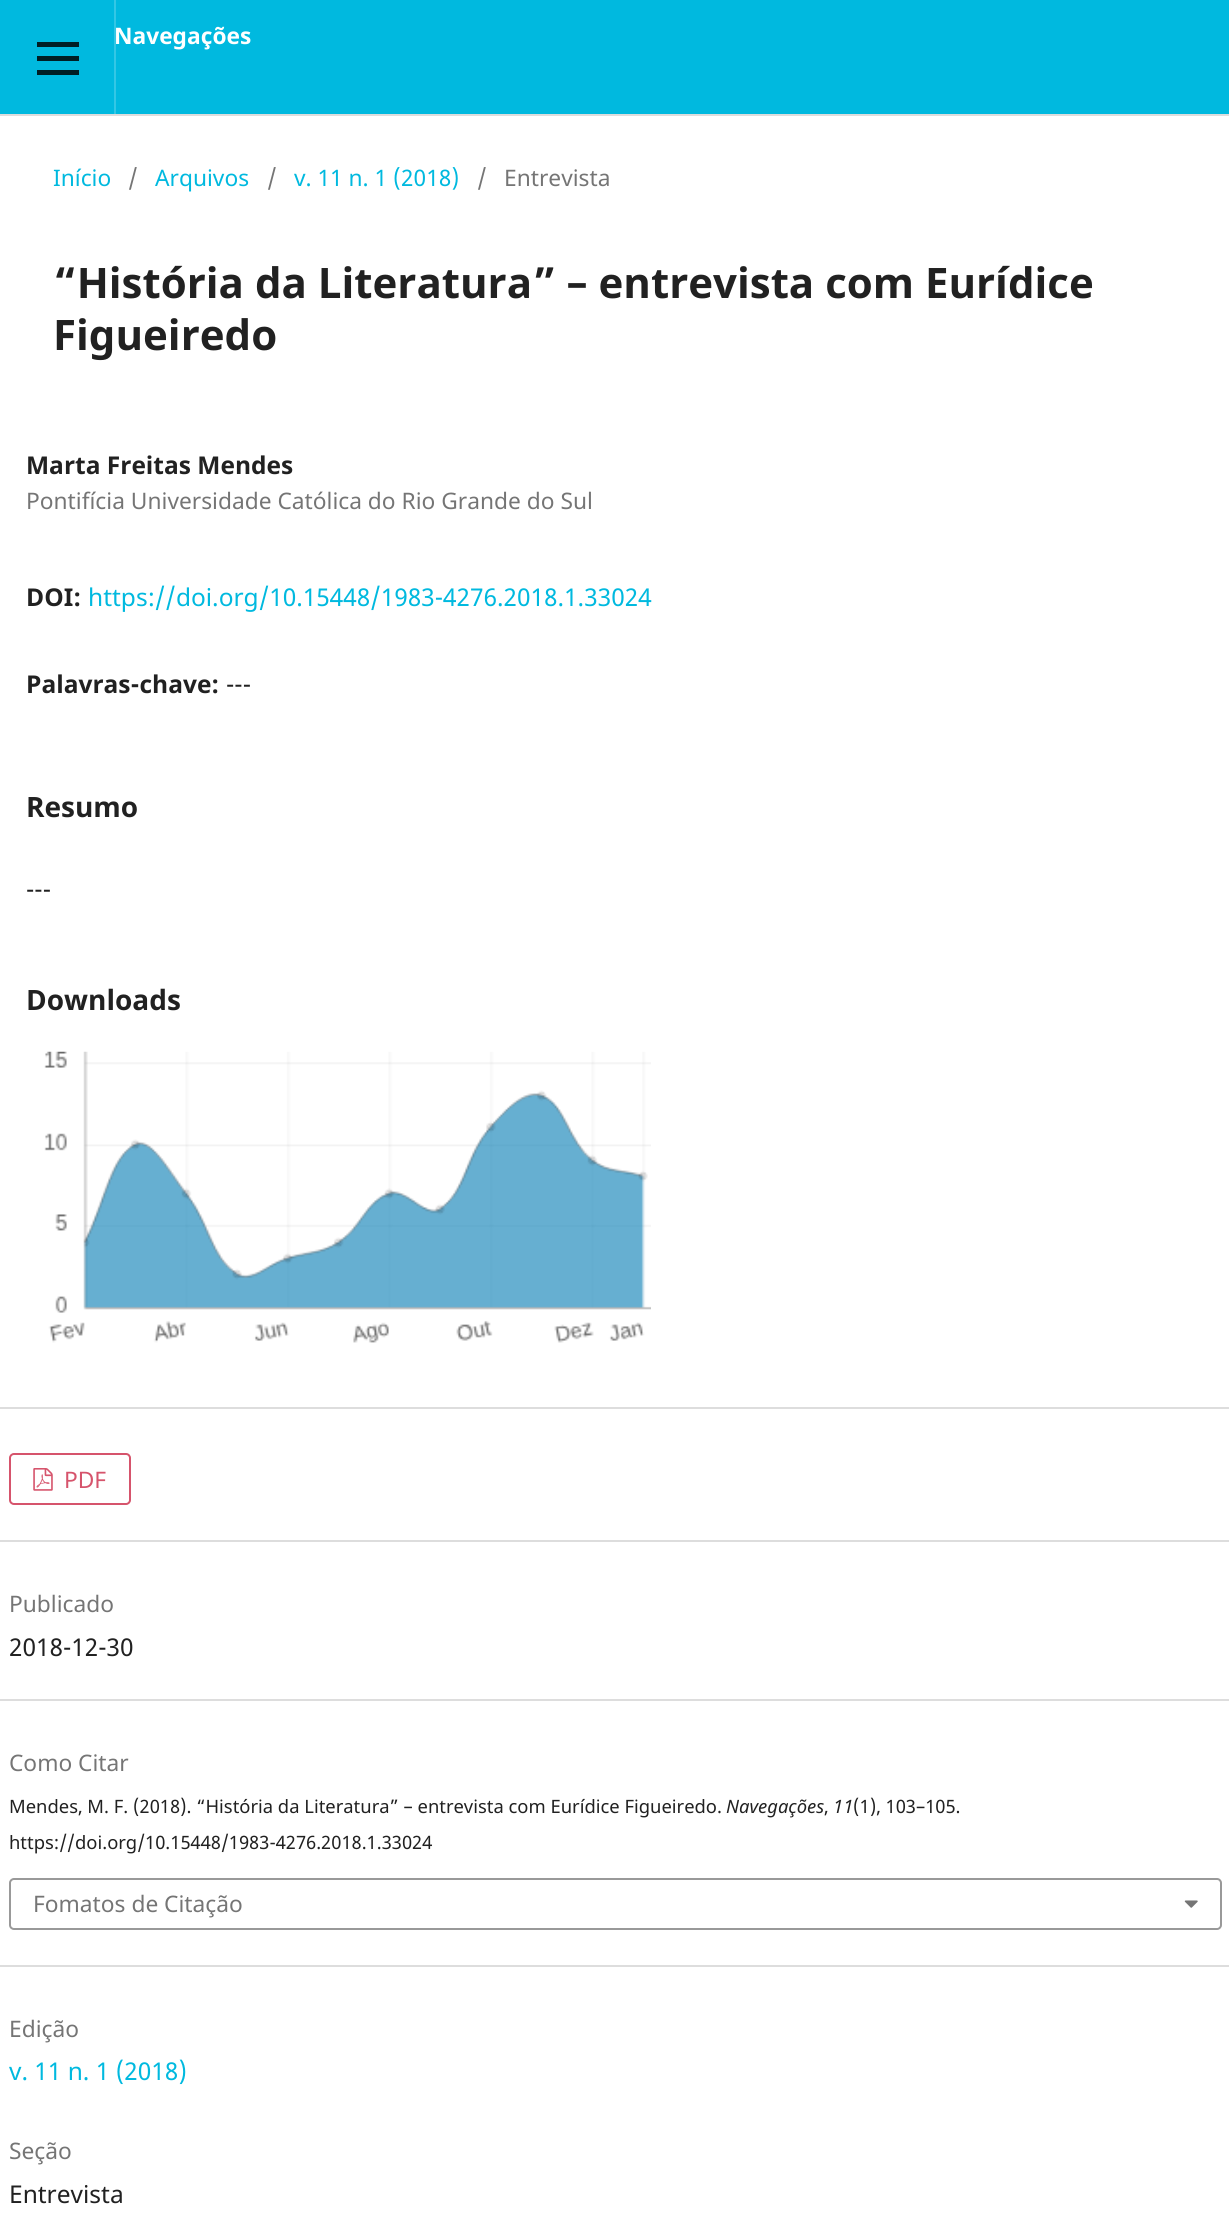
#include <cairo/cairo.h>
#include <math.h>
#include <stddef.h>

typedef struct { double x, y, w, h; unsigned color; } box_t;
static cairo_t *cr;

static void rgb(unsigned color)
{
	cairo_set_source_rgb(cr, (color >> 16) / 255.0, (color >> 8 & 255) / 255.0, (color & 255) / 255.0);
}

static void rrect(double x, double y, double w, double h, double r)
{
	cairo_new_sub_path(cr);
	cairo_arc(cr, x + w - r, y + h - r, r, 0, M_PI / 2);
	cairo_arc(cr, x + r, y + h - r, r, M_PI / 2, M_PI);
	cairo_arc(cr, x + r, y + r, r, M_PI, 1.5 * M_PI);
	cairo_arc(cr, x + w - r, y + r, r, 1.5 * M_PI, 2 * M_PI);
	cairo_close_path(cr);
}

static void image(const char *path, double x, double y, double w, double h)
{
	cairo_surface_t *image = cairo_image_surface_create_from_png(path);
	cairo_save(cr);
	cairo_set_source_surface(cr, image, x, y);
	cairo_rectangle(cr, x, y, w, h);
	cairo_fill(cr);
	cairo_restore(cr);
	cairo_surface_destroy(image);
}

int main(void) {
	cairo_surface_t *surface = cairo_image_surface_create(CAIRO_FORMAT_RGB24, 1229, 2223);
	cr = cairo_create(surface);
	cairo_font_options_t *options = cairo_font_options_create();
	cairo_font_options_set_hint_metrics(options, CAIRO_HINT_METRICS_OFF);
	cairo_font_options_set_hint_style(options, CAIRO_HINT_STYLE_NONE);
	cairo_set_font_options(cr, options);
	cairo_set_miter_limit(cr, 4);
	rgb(0xffffff);
	cairo_paint(cr);
	{
		static const box_t items[] = {
			{0, 0, 1229, 114, 0x00b9df},
			{0, 114, 1229, 2, 0xdddddd},
			{37, 70, 42, 5, 0x001e24},
			{37, 42, 42, 5, 0x001e24},
			{37, 56, 42, 5, 0x001e24},
		};
		for (size_t i = 0; i < sizeof items / sizeof *items; i++) {
			rgb(items[i].color);
			cairo_rectangle(cr, items[i].x, items[i].y, items[i].w, items[i].h);
			cairo_fill(cr);
		}
	}
	image("img/1.png", 44, 1051, 607, 292);
	rgb(0xdddddd);
	cairo_rectangle(cr, 0, 1407, 1229, 2);
	cairo_fill(cr);
	cairo_rectangle(cr, 0, 1540, 1229, 2);
	cairo_fill(cr);
	rrect(10, 1454, 120, 50, 4);
	rgb(0xd6546c);
	cairo_stroke(cr);
	image("img/2.png", 33, 1468, 20, 23);
	rgb(0xdddddd);
	cairo_rectangle(cr, 0, 1699, 1229, 2);
	cairo_fill(cr);
	cairo_rectangle(cr, 0, 1965, 1229, 2);
	cairo_fill(cr);
	rrect(10, 1879, 1211, 50, 4);
	rgb(0x999999);
	cairo_stroke(cr);
	image("img/3.png", 1184, 1900, 14, 8);
	cairo_select_font_face(cr, "Noto Sans", CAIRO_FONT_SLANT_NORMAL, CAIRO_FONT_WEIGHT_BOLD);
	cairo_set_font_size(cr, 22.75);
	rgb(0xffffff);
	cairo_move_to(cr, 114, 44);
	cairo_show_text(cr, "Navegações");
	cairo_set_source_rgba(cr, 1, 1, 1, 0.2);
	cairo_new_path(cr);
	cairo_move_to(cr, 2, 114);
	cairo_line_to(cr, 116, 114);
	cairo_line_to(cr, 116, 0);
	cairo_line_to(cr, 114, 0);
	cairo_line_to(cr, 114, 114);
	cairo_close_path(cr);
	cairo_fill(cr);
	cairo_select_font_face(cr, "Noto Sans", CAIRO_FONT_SLANT_NORMAL, CAIRO_FONT_WEIGHT_NORMAL);
	rgb(0x00b9df);
	cairo_move_to(cr, 53, 186);
	cairo_show_text(cr, "Início");
	rgb(0x757575);
	cairo_move_to(cr, 128, 186);
	cairo_show_text(cr, "/");
	rgb(0x00b9df);
	cairo_move_to(cr, 155, 186);
	cairo_show_text(cr, "Arquivos");
	rgb(0x757575);
	cairo_move_to(cr, 267, 186);
	cairo_show_text(cr, "/");
	rgb(0x00b9df);
	cairo_move_to(cr, 294, 186);
	cairo_show_text(cr, "v. 11 n. 1 (2018)");
	rgb(0x757575);
	cairo_move_to(cr, 477, 186);
	cairo_show_text(cr, "/");
	cairo_move_to(cr, 504, 186);
	cairo_show_text(cr, "Entrevista");
	cairo_select_font_face(cr, "Noto Sans", CAIRO_FONT_SLANT_NORMAL, CAIRO_FONT_WEIGHT_BOLD);
	cairo_set_font_size(cr, 42);
	rgb(0x212121);
	cairo_move_to(cr, 53, 298);
	cairo_show_text(cr, "“História da Literatura” – entrevista com Eurídice");
	cairo_move_to(cr, 53, 350);
	cairo_show_text(cr, "Figueiredo");
	cairo_set_font_size(cr, 24.5);
	cairo_move_to(cr, 26, 474);
	cairo_show_text(cr, "Marta Freitas Mendes");
	cairo_select_font_face(cr, "Noto Sans", CAIRO_FONT_SLANT_NORMAL, CAIRO_FONT_WEIGHT_NORMAL);
	cairo_set_font_size(cr, 22.75);
	rgb(0x757575);
	cairo_move_to(cr, 26, 509);
	cairo_show_text(cr, "Pontifícia Universidade Católica do Rio Grande do Sul");
	cairo_select_font_face(cr, "Noto Sans", CAIRO_FONT_SLANT_NORMAL, CAIRO_FONT_WEIGHT_BOLD);
	cairo_set_font_size(cr, 24.5);
	rgb(0x212121);
	cairo_move_to(cr, 26, 606);
	cairo_show_text(cr, "DOI:");
	cairo_select_font_face(cr, "Noto Sans", CAIRO_FONT_SLANT_NORMAL, CAIRO_FONT_WEIGHT_NORMAL);
	rgb(0x00b9df);
	cairo_move_to(cr, 88, 606);
	cairo_show_text(cr, "https://doi.org/10.15448/1983-4276.2018.1.33024");
	cairo_select_font_face(cr, "Noto Sans", CAIRO_FONT_SLANT_NORMAL, CAIRO_FONT_WEIGHT_BOLD);
	rgb(0x212121);
	cairo_move_to(cr, 26, 693);
	cairo_show_text(cr, "Palavras-chave:");
	cairo_select_font_face(cr, "Noto Sans", CAIRO_FONT_SLANT_NORMAL, CAIRO_FONT_WEIGHT_NORMAL);
	cairo_move_to(cr, 226, 693);
	cairo_show_text(cr, "---");
	cairo_select_font_face(cr, "Noto Sans", CAIRO_FONT_SLANT_NORMAL, CAIRO_FONT_WEIGHT_BOLD);
	cairo_set_font_size(cr, 28);
	cairo_move_to(cr, 26, 817);
	cairo_show_text(cr, "Resumo");
	cairo_select_font_face(cr, "Noto Sans", CAIRO_FONT_SLANT_NORMAL, CAIRO_FONT_WEIGHT_NORMAL);
	cairo_set_font_size(cr, 24.5);
	cairo_move_to(cr, 26, 898);
	cairo_show_text(cr, "---");
	cairo_select_font_face(cr, "Noto Sans", CAIRO_FONT_SLANT_NORMAL, CAIRO_FONT_WEIGHT_BOLD);
	cairo_set_font_size(cr, 28);
	cairo_move_to(cr, 26, 1010);
	cairo_show_text(cr, "Downloads");
	cairo_select_font_face(cr, "Noto Sans", CAIRO_FONT_SLANT_NORMAL, CAIRO_FONT_WEIGHT_NORMAL);
	cairo_set_font_size(cr, 22.75);
	rgb(0xd6546c);
	cairo_move_to(cr, 64, 1488);
	cairo_show_text(cr, "PDF");
	rgb(0x757575);
	cairo_move_to(cr, 9, 1612);
	cairo_show_text(cr, "Publicado");
	cairo_set_font_size(cr, 24.5);
	rgb(0x212121);
	cairo_move_to(cr, 9, 1656);
	cairo_show_text(cr, "2018-12-30");
	cairo_set_font_size(cr, 22.75);
	rgb(0x757575);
	cairo_move_to(cr, 9, 1771);
	cairo_show_text(cr, "Como Citar");
	cairo_set_font_size(cr, 18.4);
	rgb(0x212121);
	cairo_move_to(cr, 9, 1813);
	cairo_show_text(cr, "Mendes, M. F. (2018). “História da Literatura” – entrevista com Eurídice Figueiredo.");
	cairo_select_font_face(cr, "Noto Sans", CAIRO_FONT_SLANT_ITALIC, CAIRO_FONT_WEIGHT_NORMAL);
	cairo_move_to(cr, 726, 1813);
	cairo_show_text(cr, "Navegações");
	cairo_select_font_face(cr, "Noto Sans", CAIRO_FONT_SLANT_NORMAL, CAIRO_FONT_WEIGHT_NORMAL);
	cairo_move_to(cr, 824, 1813);
	cairo_show_text(cr, ",");
	cairo_select_font_face(cr, "Noto Sans", CAIRO_FONT_SLANT_ITALIC, CAIRO_FONT_WEIGHT_NORMAL);
	cairo_move_to(cr, 833, 1813);
	cairo_show_text(cr, "11");
	cairo_select_font_face(cr, "Noto Sans", CAIRO_FONT_SLANT_NORMAL, CAIRO_FONT_WEIGHT_NORMAL);
	cairo_move_to(cr, 853, 1813);
	cairo_show_text(cr, "(1), 103–105.");
	cairo_move_to(cr, 9, 1849);
	cairo_show_text(cr, "https://doi.org/10.15448/1983-4276.2018.1.33024");
	cairo_set_font_size(cr, 22.75);
	rgb(0x757575);
	cairo_move_to(cr, 33, 1912);
	cairo_show_text(cr, "Fomatos de Citação");
	cairo_move_to(cr, 9, 2037);
	cairo_show_text(cr, "Edição");
	cairo_set_font_size(cr, 24.5);
	rgb(0x00b9df);
	cairo_move_to(cr, 9, 2080);
	cairo_show_text(cr, "v. 11 n. 1 (2018)");
	cairo_set_font_size(cr, 22.75);
	rgb(0x757575);
	cairo_move_to(cr, 9, 2159);
	cairo_show_text(cr, "Seção");
	cairo_set_font_size(cr, 24.5);
	rgb(0x212121);
	cairo_move_to(cr, 9, 2203);
	cairo_show_text(cr, "Entrevista");
	cairo_surface_write_to_png(surface, "page.png");
	cairo_font_options_destroy(options);
	cairo_destroy(cr);
	cairo_surface_destroy(surface);
	return 0;
}
